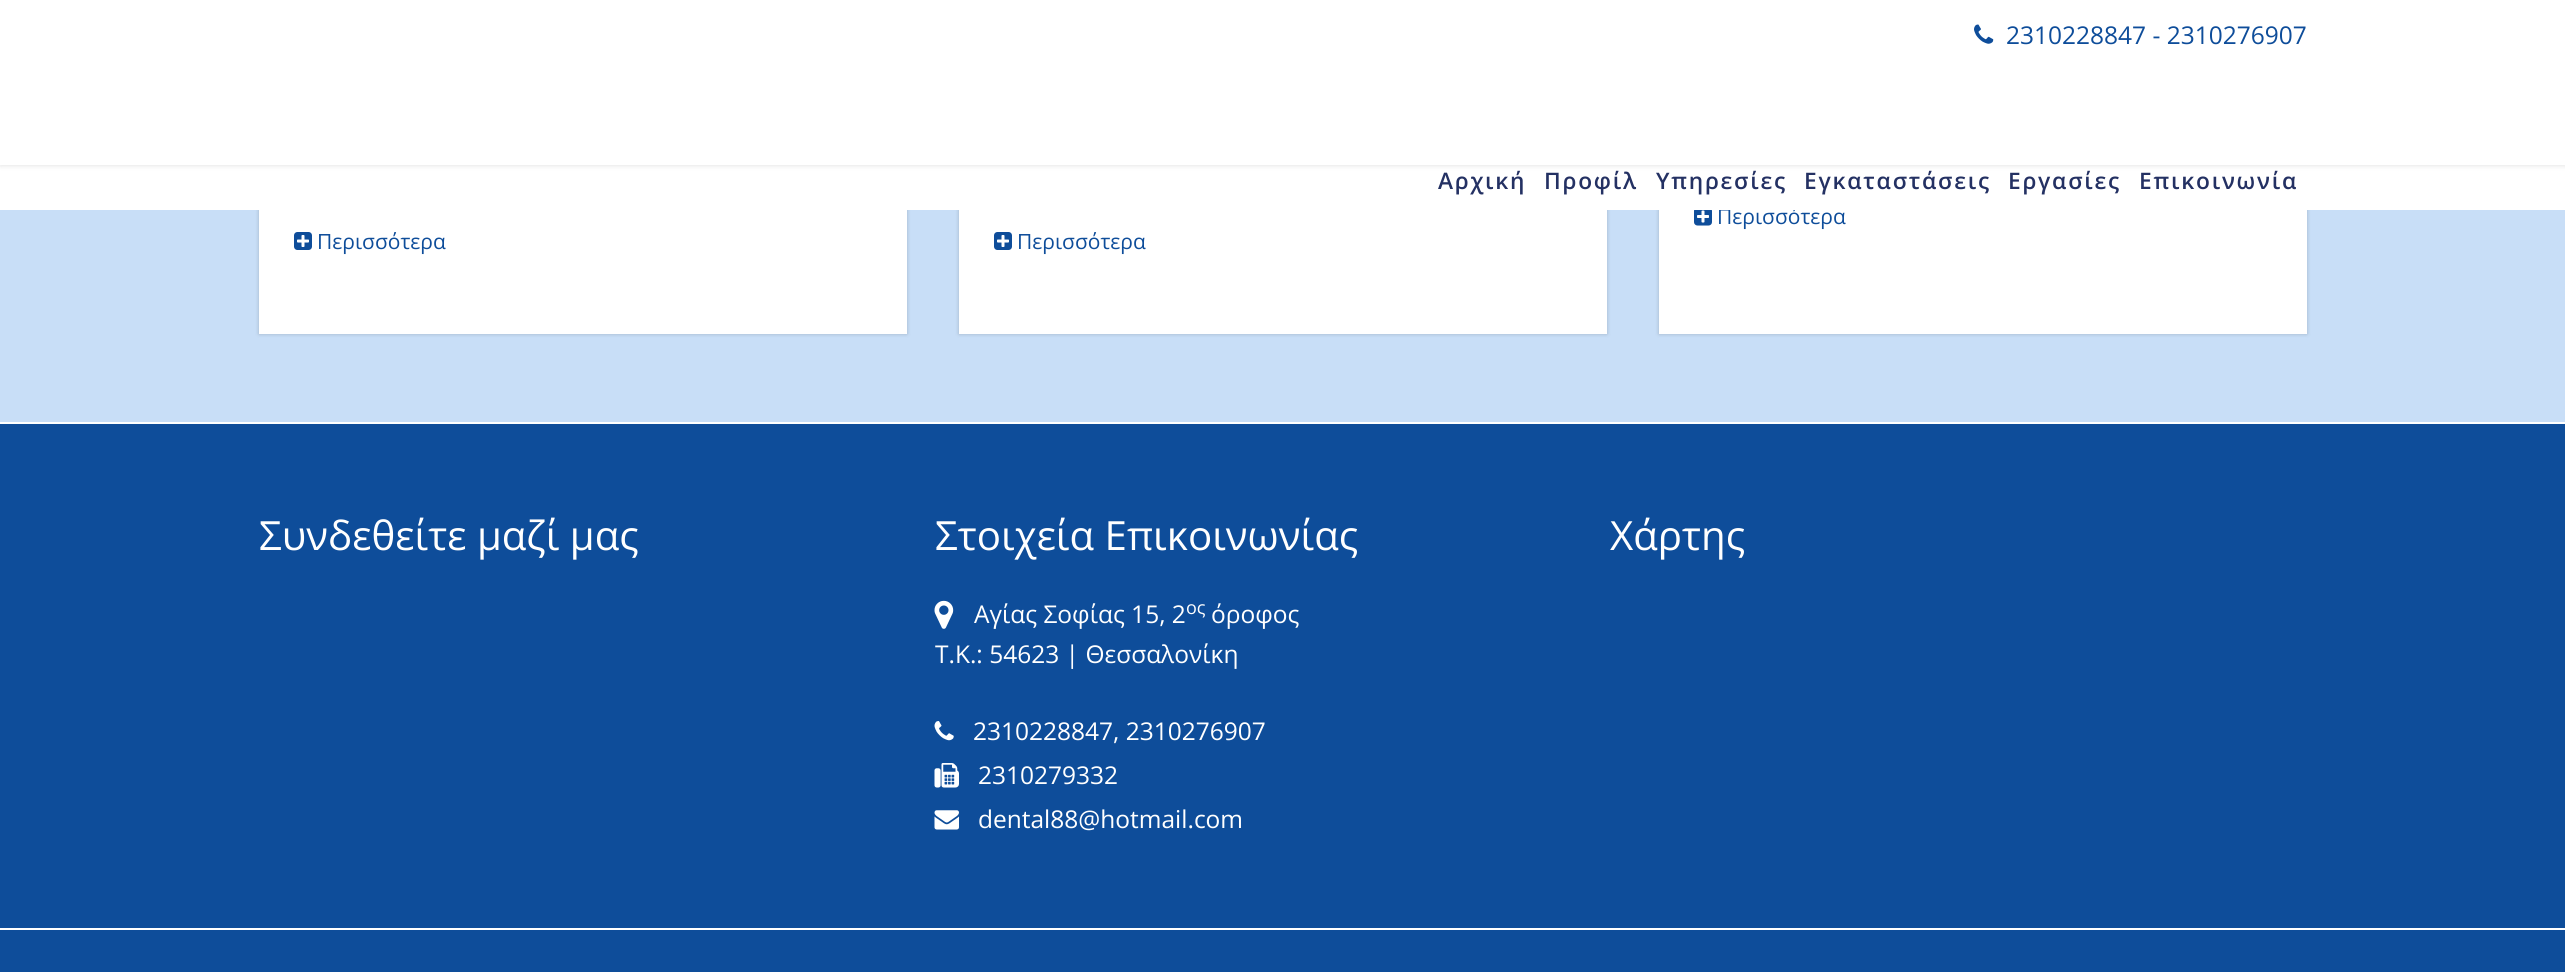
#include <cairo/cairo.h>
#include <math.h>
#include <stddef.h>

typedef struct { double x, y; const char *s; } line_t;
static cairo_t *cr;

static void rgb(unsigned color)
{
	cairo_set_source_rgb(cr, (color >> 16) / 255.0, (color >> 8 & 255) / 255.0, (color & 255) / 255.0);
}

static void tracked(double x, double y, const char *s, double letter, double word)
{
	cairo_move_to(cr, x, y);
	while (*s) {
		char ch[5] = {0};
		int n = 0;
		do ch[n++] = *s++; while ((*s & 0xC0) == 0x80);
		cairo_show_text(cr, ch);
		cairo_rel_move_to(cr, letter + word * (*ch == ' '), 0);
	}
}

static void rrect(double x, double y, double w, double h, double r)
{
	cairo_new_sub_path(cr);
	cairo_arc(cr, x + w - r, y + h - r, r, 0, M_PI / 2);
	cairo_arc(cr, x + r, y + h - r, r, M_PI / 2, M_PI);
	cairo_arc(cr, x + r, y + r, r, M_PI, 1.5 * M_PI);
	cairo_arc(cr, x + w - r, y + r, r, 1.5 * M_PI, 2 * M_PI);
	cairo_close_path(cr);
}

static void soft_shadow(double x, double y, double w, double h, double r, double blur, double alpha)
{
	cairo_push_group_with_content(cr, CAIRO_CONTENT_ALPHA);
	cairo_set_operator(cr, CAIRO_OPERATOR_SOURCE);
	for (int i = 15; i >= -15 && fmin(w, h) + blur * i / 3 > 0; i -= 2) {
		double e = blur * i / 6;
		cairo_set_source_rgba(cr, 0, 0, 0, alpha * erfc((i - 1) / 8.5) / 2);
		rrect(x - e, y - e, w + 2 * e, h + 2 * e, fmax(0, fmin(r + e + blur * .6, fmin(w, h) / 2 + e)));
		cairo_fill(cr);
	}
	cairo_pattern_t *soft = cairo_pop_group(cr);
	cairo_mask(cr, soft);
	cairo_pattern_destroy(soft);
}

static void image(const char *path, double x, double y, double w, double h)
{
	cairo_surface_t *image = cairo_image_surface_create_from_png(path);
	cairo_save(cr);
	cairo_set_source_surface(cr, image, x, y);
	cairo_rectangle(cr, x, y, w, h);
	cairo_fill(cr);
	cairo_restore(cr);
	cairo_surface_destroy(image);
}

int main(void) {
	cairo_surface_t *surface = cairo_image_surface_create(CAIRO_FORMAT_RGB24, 2565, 972);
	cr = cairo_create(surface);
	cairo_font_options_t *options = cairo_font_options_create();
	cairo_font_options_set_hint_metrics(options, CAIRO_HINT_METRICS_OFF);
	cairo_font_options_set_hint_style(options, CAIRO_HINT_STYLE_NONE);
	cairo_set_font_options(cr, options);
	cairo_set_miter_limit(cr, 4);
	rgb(0xc8def7);
	cairo_paint(cr);
	rgb(0x000000);
	soft_shadow(1659, 9, 648, 325, 0, 2, 0.2);
	rgb(0xffffff);
	cairo_rectangle(cr, 1659, 210, 648, 124);
	cairo_fill(cr);
	image("img/2.png", 1694, 210, 18, 16);
	rgb(0x000000);
	soft_shadow(259, 9, 648, 325, 0, 2, 0.2);
	rgb(0xffffff);
	cairo_rectangle(cr, 259, 210, 648, 124);
	cairo_fill(cr);
	image("img/3.png", 294, 232, 18, 18);
	rgb(0x000000);
	soft_shadow(959, 9, 648, 325, 0, 2, 0.2);
	rgb(0xffffff);
	cairo_rectangle(cr, 959, 210, 648, 124);
	cairo_fill(cr);
	image("img/4.png", 994, 232, 18, 18);
	rgb(0x0e4d9a);
	cairo_rectangle(cr, 0, 424, 2565, 504);
	cairo_fill(cr);
	rgb(0xffffff);
	cairo_rectangle(cr, 0, 422, 2565, 2);
	cairo_fill(cr);
	image("img/5.png", 934, 600, 20, 29);
	image("img/6.png", 934, 721, 20, 20);
	image("img/7.png", 934, 763, 25, 25);
	image("img/8.png", 934, 810, 25, 20);
	rgb(0x0e4d9a);
	cairo_rectangle(cr, 0, 930, 2565, 42);
	cairo_fill(cr);
	rgb(0xffffff);
	cairo_rectangle(cr, 0, 928, 2565, 2);
	cairo_fill(cr);
	cairo_select_font_face(cr, "Open Sans", CAIRO_FONT_SLANT_NORMAL, CAIRO_FONT_WEIGHT_NORMAL);
	cairo_set_font_size(cr, 21);
	rgb(0x0e4d9a);
	cairo_move_to(cr, 1717, 224);
	cairo_show_text(cr, "Περισσότερα");
	rgb(0xffffff);
	cairo_rectangle(cr, 0, 165, 2565, 45);
	cairo_fill(cr);
	rgb(0x000000);
	soft_shadow(0, 2, 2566, 164, 0, 2.5, 0.1);
	cairo_select_font_face(cr, "Open Sans SemiBold", CAIRO_FONT_SLANT_NORMAL, CAIRO_FONT_WEIGHT_NORMAL);
	cairo_set_font_size(cr, 22.75);
	rgb(0x243163);
	{
		static const line_t items[] = {
			{2139, 189, "Επικοινωνία"},
			{2008, 189, "Εργασίες"},
			{1804, 189, "Εγκαταστάσεις"},
			{1656, 189, "Υπηρεσίες"},
			{1544, 189, "Προφίλ"},
			{1438, 189, "Αρχική"},
		};
		for (size_t i = 0; i < sizeof items / sizeof *items; i++) {
			tracked(items[i].x, items[i].y, items[i].s, 1.75, 0);
		}
	}
	rgb(0xffffff);
	cairo_rectangle(cr, 0, 0, 2565, 165);
	cairo_fill(cr);
	cairo_select_font_face(cr, "Open Sans", CAIRO_FONT_SLANT_NORMAL, CAIRO_FONT_WEIGHT_NORMAL);
	cairo_set_font_size(cr, 24.5);
	rgb(0x0e4d9a);
	cairo_move_to(cr, 2006, 44);
	cairo_show_text(cr, "2310228847 - 2310276907");
	image("img/1.png", 1974, 24, 20, 20);
	cairo_set_font_size(cr, 21);
	cairo_move_to(cr, 317, 249);
	cairo_show_text(cr, "Περισσότερα");
	cairo_move_to(cr, 1017, 249);
	cairo_show_text(cr, "Περισσότερα");
	cairo_set_font_size(cr, 40.25);
	rgb(0xffffff);
	cairo_move_to(cr, 259, 550);
	cairo_show_text(cr, "Συνδεθείτε μαζί μας");
	cairo_move_to(cr, 935, 550);
	cairo_show_text(cr, "Στοιχεία Επικοινωνίας");
	cairo_set_font_size(cr, 24.5);
	cairo_move_to(cr, 974, 623);
	cairo_show_text(cr, "Αγίας Σοφίας 15, 2");
	cairo_set_font_size(cr, 18);
	cairo_move_to(cr, 1186, 614);
	cairo_show_text(cr, "ος");
	cairo_set_font_size(cr, 24.5);
	{
		static const line_t items[] = {
			{1211, 623, "όροφος"},
			{935, 663, "Τ.Κ.: 54623 | Θεσσαλονίκη"},
			{973, 740, "2310228847, 2310276907"},
			{978, 784, "2310279332"},
			{978, 828, "dental88@hotmail.com"},
		};
		for (size_t i = 0; i < sizeof items / sizeof *items; i++) {
			cairo_move_to(cr, items[i].x, items[i].y);
			cairo_show_text(cr, items[i].s);
		}
	}
	cairo_set_font_size(cr, 40.25);
	cairo_move_to(cr, 1610, 550);
	cairo_show_text(cr, "Χάρτης");
	cairo_surface_write_to_png(surface, "page.png");
	cairo_font_options_destroy(options);
	cairo_destroy(cr);
	cairo_surface_destroy(surface);
	return 0;
}
